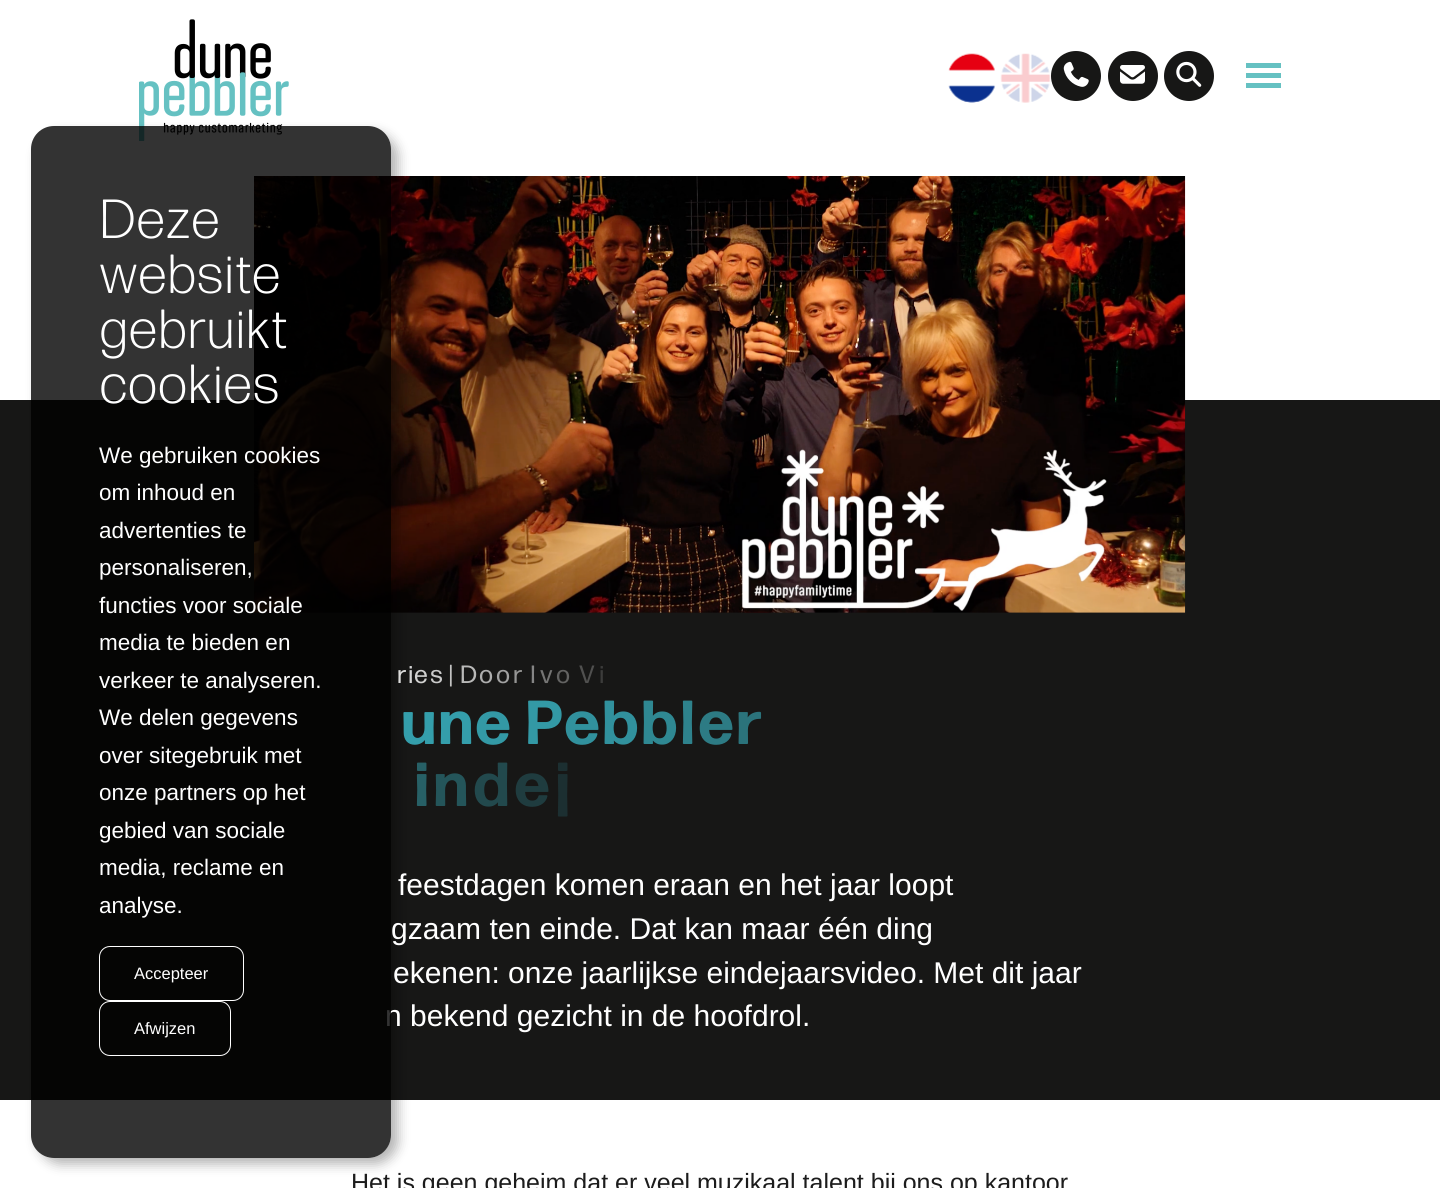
#include <cairo/cairo.h>
#include <math.h>
#include <stddef.h>

typedef struct { double x, y; const char *s; } line_t;
typedef struct { double x, y, w, h; unsigned color; } box_t;
static cairo_t *cr;

static void rgb(unsigned color)
{
	cairo_set_source_rgb(cr, (color >> 16) / 255.0, (color >> 8 & 255) / 255.0, (color & 255) / 255.0);
}

static void rrect(double x, double y, double w, double h, double r)
{
	cairo_new_sub_path(cr);
	cairo_arc(cr, x + w - r, y + h - r, r, 0, M_PI / 2);
	cairo_arc(cr, x + r, y + h - r, r, M_PI / 2, M_PI);
	cairo_arc(cr, x + r, y + r, r, M_PI, 1.5 * M_PI);
	cairo_arc(cr, x + w - r, y + r, r, 1.5 * M_PI, 2 * M_PI);
	cairo_close_path(cr);
}

static void soft_shadow(double x, double y, double w, double h, double r, double blur, double alpha)
{
	cairo_push_group_with_content(cr, CAIRO_CONTENT_ALPHA);
	cairo_set_operator(cr, CAIRO_OPERATOR_SOURCE);
	for (int i = 15; i >= -15 && fmin(w, h) + blur * i / 3 > 0; i -= 2) {
		double e = blur * i / 6;
		cairo_set_source_rgba(cr, 0, 0, 0, alpha * erfc((i - 1) / 8.5) / 2);
		rrect(x - e, y - e, w + 2 * e, h + 2 * e, fmax(0, fmin(r + e + blur * .6, fmin(w, h) / 2 + e)));
		cairo_fill(cr);
	}
	cairo_pattern_t *soft = cairo_pop_group(cr);
	cairo_mask(cr, soft);
	cairo_pattern_destroy(soft);
}

static void image(const char *path, double x, double y, double w, double h)
{
	cairo_surface_t *image = cairo_image_surface_create_from_png(path);
	cairo_save(cr);
	cairo_set_source_surface(cr, image, x, y);
	cairo_rectangle(cr, x, y, w, h);
	cairo_fill(cr);
	cairo_restore(cr);
	cairo_surface_destroy(image);
}

int main(void) {
	cairo_surface_t *surface = cairo_image_surface_create(CAIRO_FORMAT_RGB24, 1440, 1188);
	cr = cairo_create(surface);
	cairo_font_options_t *options = cairo_font_options_create();
	cairo_font_options_set_hint_metrics(options, CAIRO_HINT_METRICS_OFF);
	cairo_font_options_set_hint_style(options, CAIRO_HINT_STYLE_NONE);
	cairo_set_font_options(cr, options);
	cairo_set_miter_limit(cr, 4);
	rgb(0xffffff);
	cairo_paint(cr);
	image("img/1.png", 139, 19, 150, 122);
	image("img/2.png", 948, 53, 48, 50);
	image("img/3.png", 1000, 53, 51, 50);
	rgb(0x171716);
	cairo_arc(cr, 1076, 76, 25, 0, 2 * M_PI);
	cairo_fill(cr);
	image("img/4.png", 1063, 61, 26, 26);
	cairo_arc(cr, 1133, 76, 25, 0, 2 * M_PI);
	cairo_fill(cr);
	image("img/5.png", 1120, 65, 25, 19);
	cairo_arc(cr, 1189, 76, 25, 0, 2 * M_PI);
	cairo_fill(cr);
	image("img/6.png", 1176, 61, 26, 26);
	{
		static const box_t items[] = {
			{1246, 73, 35, 5, 0x65c1c2},
			{1246, 63, 35, 5, 0x65c1c2},
			{1246, 83, 35, 5, 0x65c1c2},
			{0, 400, 1440, 700, 0x171716},
		};
		for (size_t i = 0; i < sizeof items / sizeof *items; i++) {
			rgb(items[i].color);
			cairo_rectangle(cr, items[i].x, items[i].y, items[i].w, items[i].h);
			cairo_fill(cr);
		}
	}
	image("img/7.png", 254, 176, 932, 437);
	cairo_save(cr);
	cairo_set_fill_rule(cr, CAIRO_FILL_RULE_EVEN_ODD);
	cairo_new_path(cr);
	cairo_move_to(cr, 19, 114);
	cairo_line_to(cr, 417, 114);
	cairo_line_to(cr, 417, 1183);
	cairo_line_to(cr, 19, 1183);
	cairo_close_path(cr);
	cairo_move_to(cr, 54, 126);
	cairo_line_to(cr, 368, 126);
	cairo_curve_to(cr, 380.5, 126, 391, 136.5, 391, 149);
	cairo_line_to(cr, 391, 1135);
	cairo_curve_to(cr, 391, 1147.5, 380.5, 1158, 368, 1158);
	cairo_line_to(cr, 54, 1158);
	cairo_curve_to(cr, 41.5, 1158, 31, 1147.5, 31, 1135);
	cairo_line_to(cr, 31, 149);
	cairo_curve_to(cr, 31, 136.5, 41.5, 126, 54, 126);
	cairo_close_path(cr);
	cairo_clip(cr);
	rgb(0x000000);
	soft_shadow(38, 133, 360, 1031, 23, 6, 0.3);
	cairo_restore(cr);
	cairo_select_font_face(cr, "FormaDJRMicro", CAIRO_FONT_SLANT_NORMAL, CAIRO_FONT_WEIGHT_NORMAL);
	cairo_set_font_size(cr, 25);
	rgb(0xdcdcdb);
	cairo_move_to(cr, 397, 683);
	cairo_show_text(cr, "r");
	rgb(0xd6d6d6);
	cairo_move_to(cr, 408, 683);
	cairo_show_text(cr, "i");
	rgb(0xd1d1d0);
	cairo_move_to(cr, 414, 683);
	cairo_show_text(cr, "e");
	rgb(0xcacaca);
	cairo_move_to(cr, 430, 683);
	cairo_show_text(cr, "s");
	rgb(0xc2c2c2);
	cairo_move_to(cr, 449, 683);
	cairo_show_text(cr, "|");
	rgb(0xb9b9b8);
	cairo_move_to(cr, 460, 683);
	cairo_show_text(cr, "D");
	rgb(0xaeaeae);
	cairo_move_to(cr, 479, 683);
	cairo_show_text(cr, "o");
	rgb(0xa2a2a2);
	cairo_move_to(cr, 496, 683);
	cairo_show_text(cr, "o");
	rgb(0x959594);
	cairo_move_to(cr, 513, 683);
	cairo_show_text(cr, "r");
	rgb(0x858585);
	cairo_move_to(cr, 530, 683);
	cairo_show_text(cr, "I");
	rgb(0x757574);
	cairo_move_to(cr, 540, 683);
	cairo_show_text(cr, "v");
	rgb(0x636362);
	cairo_move_to(cr, 556, 683);
	cairo_show_text(cr, "o");
	rgb(0x50504f);
	cairo_move_to(cr, 579, 683);
	cairo_show_text(cr, "V");
	rgb(0x3c3c3b);
	cairo_move_to(cr, 599, 683);
	cairo_show_text(cr, "i");
	cairo_select_font_face(cr, "FormaDJRMicro", CAIRO_FONT_SLANT_NORMAL, CAIRO_FONT_WEIGHT_BOLD);
	cairo_set_font_size(cr, 62);
	rgb(0x349eab);
	cairo_move_to(cr, 401, 744);
	cairo_show_text(cr, "u");
	cairo_move_to(cr, 438, 744);
	cairo_show_text(cr, "n");
	rgb(0x3399a5);
	cairo_move_to(cr, 475, 744);
	cairo_show_text(cr, "e");
	cairo_move_to(cr, 525, 744);
	cairo_show_text(cr, "P");
	rgb(0x31919d);
	cairo_move_to(cr, 564, 744);
	cairo_show_text(cr, "e");
	cairo_move_to(cr, 602, 744);
	cairo_show_text(cr, "b");
	rgb(0x2f8892);
	cairo_move_to(cr, 641, 744);
	cairo_show_text(cr, "b");
	rgb(0x2e828c);
	cairo_move_to(cr, 680, 744);
	cairo_show_text(cr, "l");
	rgb(0x2d7b84);
	cairo_move_to(cr, 698, 744);
	cairo_show_text(cr, "e");
	rgb(0x2b737b);
	cairo_move_to(cr, 736, 744);
	cairo_show_text(cr, "r");
	rgb(0x276066);
	cairo_move_to(cr, 414, 806);
	cairo_show_text(cr, "i");
	rgb(0x24555a);
	cairo_move_to(cr, 433, 806);
	cairo_show_text(cr, "n");
	rgb(0x22494d);
	cairo_move_to(cr, 473, 806);
	cairo_show_text(cr, "d");
	rgb(0x1f3c3f);
	cairo_move_to(cr, 514, 806);
	cairo_show_text(cr, "e");
	rgb(0x1c2f31);
	cairo_move_to(cr, 555, 806);
	cairo_show_text(cr, "j");
	cairo_select_font_face(cr, "Liberation Sans", CAIRO_FONT_SLANT_NORMAL, CAIRO_FONT_WEIGHT_NORMAL);
	cairo_set_font_size(cr, 30);
	rgb(0xffffff);
	{
		static const line_t items[] = {
			{398, 895, "feestdagen komen eraan en het jaar loopt"},
			{391, 939, "gzaam ten einde. Dat kan maar één ding"},
			{393, 983, "ekenen: onze jaarlijkse eindejaarsvideo. Met dit jaar"},
			{385, 1026, "n bekend gezicht in de hoofdrol."},
		};
		for (size_t i = 0; i < sizeof items / sizeof *items; i++) {
			cairo_move_to(cr, items[i].x, items[i].y);
			cairo_show_text(cr, items[i].s);
		}
	}
	cairo_set_source_rgba(cr, 0, 0, 0, 0.8);
	rrect(31, 126, 360, 1032, 23);
	cairo_fill(cr);
	rrect(99.5, 1001.5, 131, 54, 10.5);
	rgb(0xffffff);
	cairo_set_line_width(cr, 1);
	cairo_stroke(cr);
	cairo_set_font_size(cr, 16.5);
	cairo_move_to(cr, 134, 1034);
	cairo_show_text(cr, "Afwijzen");
	rrect(99.5, 946.5, 144, 54, 10.5);
	cairo_stroke(cr);
	cairo_move_to(cr, 134, 979);
	cairo_show_text(cr, "Accepteer");
	cairo_set_font_size(cr, 22.5);
	{
		static const line_t items[] = {
			{99, 913, "analyse."},
			{99, 875, "media, reclame en"},
			{99, 838, "gebied van sociale"},
			{99, 800, "onze partners op het"},
			{99, 763, "over sitegebruik met"},
			{99, 725, "We delen gegevens"},
			{99, 688, "verkeer te analyseren."},
			{99, 650, "media te bieden en"},
			{99, 613, "functies voor sociale"},
			{99, 575, "personaliseren,"},
			{99, 538, "advertenties te"},
			{99, 500, "om inhoud en"},
			{99, 463, "We gebruiken cookies"},
		};
		for (size_t i = 0; i < sizeof items / sizeof *items; i++) {
			cairo_move_to(cr, items[i].x, items[i].y);
			cairo_show_text(cr, items[i].s);
		}
	}
	cairo_select_font_face(cr, "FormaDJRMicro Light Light", CAIRO_FONT_SLANT_NORMAL, CAIRO_FONT_WEIGHT_NORMAL);
	cairo_set_font_size(cr, 55);
	{
		static const line_t items[] = {
			{99, 403, "cookies"},
			{99, 348, "gebruikt"},
			{99, 293, "website"},
			{99, 238, "Deze"},
		};
		for (size_t i = 0; i < sizeof items / sizeof *items; i++) {
			cairo_move_to(cr, items[i].x, items[i].y);
			cairo_show_text(cr, items[i].s);
		}
	}
	cairo_select_font_face(cr, "Liberation Sans", CAIRO_FONT_SLANT_NORMAL, CAIRO_FONT_WEIGHT_NORMAL);
	cairo_set_font_size(cr, 25);
	rgb(0x1c1c1c);
	cairo_move_to(cr, 351, 1191);
	cairo_show_text(cr, "Het is geen geheim dat er veel muzikaal talent bij ons op kantoor");
	cairo_surface_write_to_png(surface, "page.png");
	cairo_font_options_destroy(options);
	cairo_destroy(cr);
	cairo_surface_destroy(surface);
	return 0;
}
